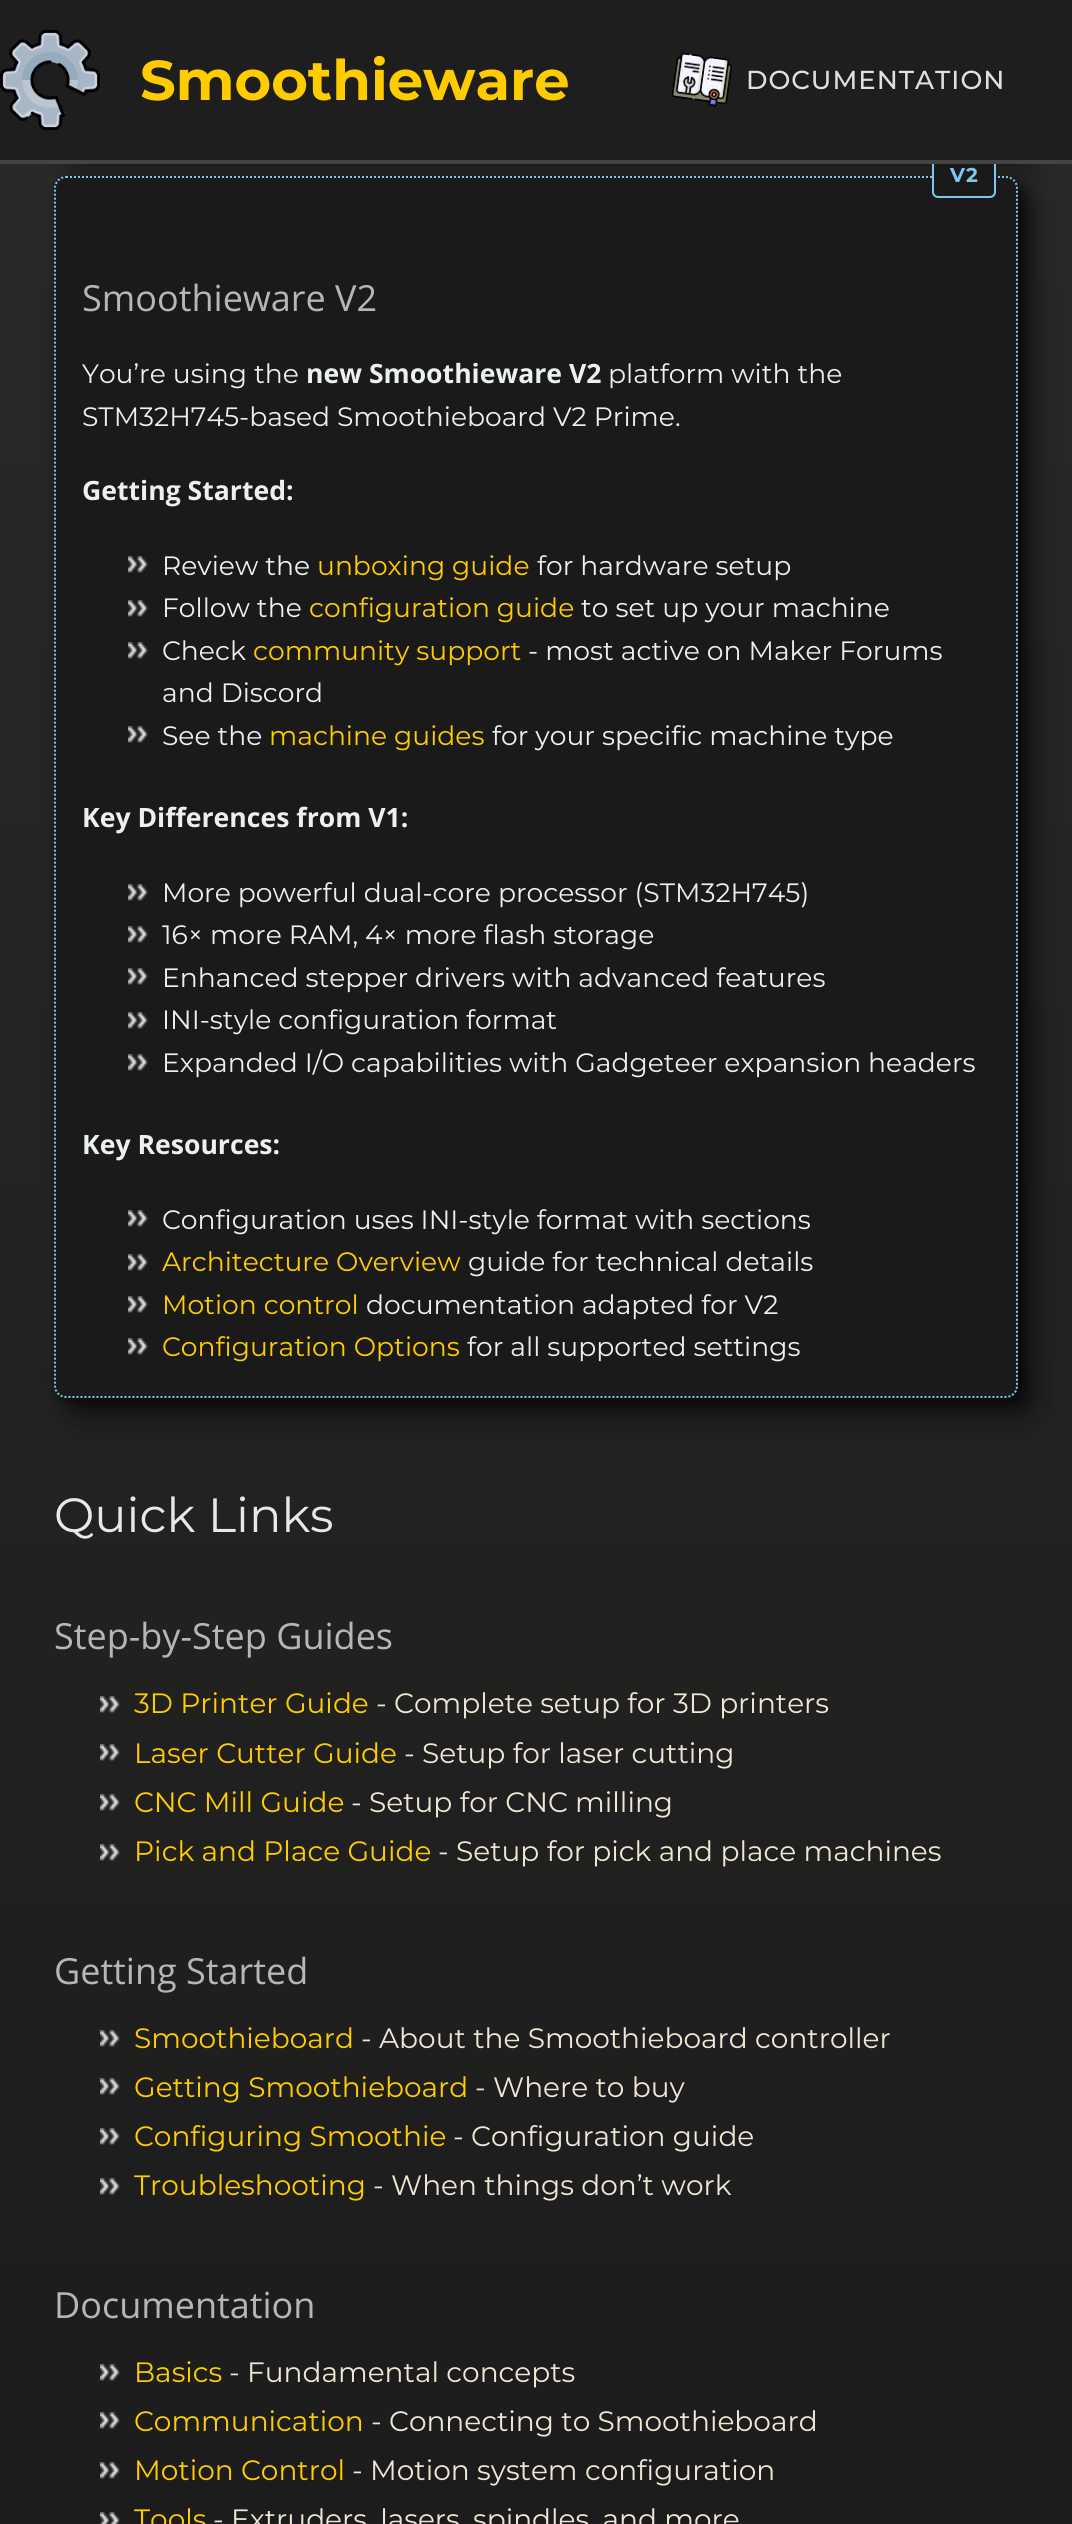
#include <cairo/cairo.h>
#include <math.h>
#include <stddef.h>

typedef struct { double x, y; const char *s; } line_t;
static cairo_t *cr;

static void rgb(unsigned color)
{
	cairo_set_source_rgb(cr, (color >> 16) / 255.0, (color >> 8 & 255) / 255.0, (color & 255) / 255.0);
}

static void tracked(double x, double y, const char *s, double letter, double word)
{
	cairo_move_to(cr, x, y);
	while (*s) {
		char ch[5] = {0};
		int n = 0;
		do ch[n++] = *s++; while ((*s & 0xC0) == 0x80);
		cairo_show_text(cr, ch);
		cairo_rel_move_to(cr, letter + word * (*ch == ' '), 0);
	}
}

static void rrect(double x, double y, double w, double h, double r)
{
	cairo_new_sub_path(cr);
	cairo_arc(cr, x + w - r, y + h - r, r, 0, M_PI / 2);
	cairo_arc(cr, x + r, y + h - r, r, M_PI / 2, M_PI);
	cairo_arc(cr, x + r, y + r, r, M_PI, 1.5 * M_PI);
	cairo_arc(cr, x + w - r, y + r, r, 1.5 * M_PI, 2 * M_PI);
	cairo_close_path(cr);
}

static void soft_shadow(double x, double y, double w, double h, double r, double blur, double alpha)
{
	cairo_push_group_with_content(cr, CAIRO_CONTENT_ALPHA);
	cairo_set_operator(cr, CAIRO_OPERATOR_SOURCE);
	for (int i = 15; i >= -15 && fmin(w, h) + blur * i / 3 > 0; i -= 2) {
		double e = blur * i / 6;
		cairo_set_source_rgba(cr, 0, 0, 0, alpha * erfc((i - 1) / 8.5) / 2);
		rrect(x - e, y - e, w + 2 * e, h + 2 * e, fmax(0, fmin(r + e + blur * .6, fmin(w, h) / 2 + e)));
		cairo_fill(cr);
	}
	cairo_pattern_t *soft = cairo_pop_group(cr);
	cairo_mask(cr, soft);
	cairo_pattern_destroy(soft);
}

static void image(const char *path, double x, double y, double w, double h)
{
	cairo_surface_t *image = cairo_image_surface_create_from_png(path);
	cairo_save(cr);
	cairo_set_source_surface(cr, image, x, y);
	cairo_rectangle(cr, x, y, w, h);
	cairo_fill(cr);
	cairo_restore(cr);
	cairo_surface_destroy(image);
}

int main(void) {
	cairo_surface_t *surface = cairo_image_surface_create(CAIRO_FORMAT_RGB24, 1072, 2524);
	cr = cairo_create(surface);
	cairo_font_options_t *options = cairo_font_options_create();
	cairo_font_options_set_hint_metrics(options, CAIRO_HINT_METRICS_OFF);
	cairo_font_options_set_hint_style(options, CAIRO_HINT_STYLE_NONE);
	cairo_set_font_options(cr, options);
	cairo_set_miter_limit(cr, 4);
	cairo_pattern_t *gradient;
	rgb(0xffffff);
	cairo_paint(cr);
	gradient = cairo_pattern_create_linear(536, 0, 536, 2524);
	cairo_pattern_add_color_stop_rgba(gradient, 0, 0.165, 0.165, 0.161, 1);
	cairo_pattern_add_color_stop_rgba(gradient, 1, 0.11, 0.11, 0.11, 1);
	cairo_set_source(cr, gradient);
	cairo_pattern_destroy(gradient);
	cairo_rectangle(cr, 0, 164, 1072, 2360);
	cairo_fill(cr);
	rgb(0x000000);
	soft_shadow(62, -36, 964, 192, 12, 8, 0.4);
	soft_shadow(70, -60, 964, 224, 12, 16, 0.5);
	soft_shadow(62, 184, 964, 1222, 12, 8, 0.4);
	soft_shadow(70, 192, 964, 1222, 12, 16, 0.5);
	soft_shadow(58, 180, 964, 1222, 12, 4, 0.3);
	rgb(0x1a1a1a);
	rrect(54, 176, 964, 1222, 12);
	cairo_fill(cr);
	cairo_new_path(cr);
	cairo_move_to(cr, 66, 177);
	cairo_line_to(cr, 1006, 177);
	cairo_curve_to(cr, 1012, 177, 1017, 182, 1017, 188);
	cairo_line_to(cr, 1017, 1386);
	cairo_curve_to(cr, 1017, 1392, 1012, 1397, 1006, 1397);
	cairo_line_to(cr, 66, 1397);
	cairo_curve_to(cr, 60, 1397, 55, 1392, 55, 1386);
	cairo_line_to(cr, 55, 188);
	cairo_curve_to(cr, 55, 182, 60, 177, 66, 177);
	cairo_close_path(cr);
	rgb(0x7ec8ed);
	cairo_set_dash(cr, (double[]){2, 2}, 2, 0);
	cairo_stroke(cr);
	rgb(0x1a1a1a);
	rrect(933, 155, 62, 42, 5);
	cairo_fill_preserve(cr);
	rgb(0x7ec8ed);
	cairo_set_dash(cr, NULL, 0, 0);
	cairo_stroke(cr);
	rgb(0x1e1e1e);
	cairo_rectangle(cr, 0, 0, 1072, 160);
	cairo_fill(cr);
	rgb(0x444444);
	cairo_rectangle(cr, 0, 160, 1072, 4);
	cairo_fill(cr);
	image("img/1.png", 0, 30, 100, 100);
	image("img/2.png", 671, 52, 62, 55);
	image("img/3.png", 128, 556, 20, 17);
	image("img/3.png", 128, 600, 20, 17);
	image("img/3.png", 128, 642, 20, 17);
	image("img/3.png", 128, 726, 20, 17);
	image("img/3.png", 128, 884, 20, 17);
	image("img/3.png", 128, 926, 20, 17);
	image("img/3.png", 128, 968, 20, 17);
	image("img/3.png", 128, 1012, 20, 17);
	image("img/3.png", 128, 1054, 20, 17);
	image("img/3.png", 128, 1210, 20, 17);
	image("img/3.png", 128, 1254, 20, 17);
	image("img/3.png", 128, 1296, 20, 17);
	image("img/3.png", 128, 1338, 20, 17);
	image("img/4.png", 100, 1696, 20, 17);
	image("img/5.png", 100, 1744, 20, 17);
	image("img/5.png", 100, 1794, 20, 17);
	image("img/6.png", 100, 1844, 20, 17);
	image("img/7.png", 100, 2030, 20, 17);
	image("img/8.png", 100, 2078, 20, 17);
	image("img/8.png", 100, 2128, 20, 17);
	image("img/8.png", 100, 2178, 20, 17);
	image("img/9.png", 100, 2364, 20, 17);
	image("img/10.png", 100, 2412, 20, 17);
	image("img/11.png", 100, 2462, 20, 17);
	image("img/12.png", 100, 2512, 20, 12);
	cairo_select_font_face(cr, "Montserrat", CAIRO_FONT_SLANT_NORMAL, CAIRO_FONT_WEIGHT_BOLD);
	cairo_set_font_size(cr, 56);
	rgb(0xffcc00);
	cairo_move_to(cr, 140, 100);
	cairo_show_text(cr, "Smoothieware");
	cairo_select_font_face(cr, "Montserrat Medium", CAIRO_FONT_SLANT_NORMAL, CAIRO_FONT_WEIGHT_NORMAL);
	cairo_set_font_size(cr, 26);
	rgb(0xe0e0e0);
	tracked(746, 89, "DOCUMENTATION", 1, 0);
	cairo_select_font_face(cr, "Montserrat", CAIRO_FONT_SLANT_NORMAL, CAIRO_FONT_WEIGHT_BOLD);
	cairo_set_font_size(cr, 20);
	rgb(0x7ec8ed);
	tracked(950, 182, "V2", 1, 0);
	cairo_select_font_face(cr, "Open Sans", CAIRO_FONT_SLANT_NORMAL, CAIRO_FONT_WEIGHT_NORMAL);
	cairo_set_font_size(cr, 36);
	rgb(0xb6b6b6);
	cairo_move_to(cr, 82, 311);
	cairo_show_text(cr, "Smoothieware V2");
	cairo_select_font_face(cr, "Montserrat", CAIRO_FONT_SLANT_NORMAL, CAIRO_FONT_WEIGHT_NORMAL);
	cairo_set_font_size(cr, 26.6);
	rgb(0xecf0f1);
	cairo_move_to(cr, 82, 383);
	cairo_show_text(cr, "You’re using the");
	cairo_select_font_face(cr, "Open Sans", CAIRO_FONT_SLANT_NORMAL, CAIRO_FONT_WEIGHT_BOLD);
	cairo_move_to(cr, 306, 383);
	cairo_show_text(cr, "new Smoothieware V2");
	cairo_select_font_face(cr, "Montserrat", CAIRO_FONT_SLANT_NORMAL, CAIRO_FONT_WEIGHT_NORMAL);
	cairo_move_to(cr, 608, 383);
	cairo_show_text(cr, "platform with the");
	cairo_move_to(cr, 82, 426);
	cairo_show_text(cr, "STM32H745-based Smoothieboard V2 Prime.");
	cairo_select_font_face(cr, "Open Sans", CAIRO_FONT_SLANT_NORMAL, CAIRO_FONT_WEIGHT_BOLD);
	cairo_move_to(cr, 82, 500);
	cairo_show_text(cr, "Getting Started:");
	cairo_select_font_face(cr, "Montserrat", CAIRO_FONT_SLANT_NORMAL, CAIRO_FONT_WEIGHT_NORMAL);
	cairo_move_to(cr, 162, 575);
	cairo_show_text(cr, "Review the");
	rgb(0xffcc00);
	cairo_move_to(cr, 317, 575);
	cairo_show_text(cr, "unboxing guide");
	rgb(0xecf0f1);
	cairo_move_to(cr, 537, 575);
	cairo_show_text(cr, "for hardware setup");
	cairo_move_to(cr, 162, 617);
	cairo_show_text(cr, "Follow the");
	rgb(0xffcc00);
	cairo_move_to(cr, 309, 617);
	cairo_show_text(cr, "configuration guide");
	rgb(0xecf0f1);
	cairo_move_to(cr, 581, 617);
	cairo_show_text(cr, "to set up your machine");
	cairo_move_to(cr, 162, 660);
	cairo_show_text(cr, "Check");
	rgb(0xffcc00);
	cairo_move_to(cr, 253, 660);
	cairo_show_text(cr, "community support");
	rgb(0xecf0f1);
	{
		static const line_t items[] = {
			{528, 660, "- most active on Maker Forums"},
			{162, 702, "and Discord"},
			{162, 745, "See the"},
		};
		for (size_t i = 0; i < sizeof items / sizeof *items; i++) {
			cairo_move_to(cr, items[i].x, items[i].y);
			cairo_show_text(cr, items[i].s);
		}
	}
	rgb(0xffcc00);
	cairo_move_to(cr, 269, 745);
	cairo_show_text(cr, "machine guides");
	rgb(0xecf0f1);
	cairo_move_to(cr, 492, 745);
	cairo_show_text(cr, "for your specific machine type");
	cairo_select_font_face(cr, "Open Sans", CAIRO_FONT_SLANT_NORMAL, CAIRO_FONT_WEIGHT_BOLD);
	cairo_move_to(cr, 82, 827);
	cairo_show_text(cr, "Key Differences from V1:");
	cairo_select_font_face(cr, "Montserrat", CAIRO_FONT_SLANT_NORMAL, CAIRO_FONT_WEIGHT_NORMAL);
	{
		static const line_t items[] = {
			{162, 902, "More powerful dual-core processor (STM32H745)"},
			{162, 944, "16× more RAM, 4× more flash storage"},
			{162, 987, "Enhanced stepper drivers with advanced features"},
			{162, 1029, "INI-style configuration format"},
			{162, 1072, "Expanded I/O capabilities with Gadgeteer expansion headers"},
		};
		for (size_t i = 0; i < sizeof items / sizeof *items; i++) {
			cairo_move_to(cr, items[i].x, items[i].y);
			cairo_show_text(cr, items[i].s);
		}
	}
	cairo_select_font_face(cr, "Open Sans", CAIRO_FONT_SLANT_NORMAL, CAIRO_FONT_WEIGHT_BOLD);
	cairo_move_to(cr, 82, 1154);
	cairo_show_text(cr, "Key Resources:");
	cairo_select_font_face(cr, "Montserrat", CAIRO_FONT_SLANT_NORMAL, CAIRO_FONT_WEIGHT_NORMAL);
	cairo_move_to(cr, 162, 1229);
	cairo_show_text(cr, "Configuration uses INI-style format with sections");
	rgb(0xffcc00);
	cairo_move_to(cr, 162, 1271);
	cairo_show_text(cr, "Architecture Overview");
	rgb(0xecf0f1);
	cairo_move_to(cr, 468, 1271);
	cairo_show_text(cr, "guide for technical details");
	rgb(0xffcc00);
	cairo_move_to(cr, 162, 1314);
	cairo_show_text(cr, "Motion control");
	rgb(0xecf0f1);
	cairo_move_to(cr, 366, 1314);
	cairo_show_text(cr, "documentation adapted for V2");
	rgb(0xffcc00);
	cairo_move_to(cr, 162, 1356);
	cairo_show_text(cr, "Configuration Options");
	rgb(0xecf0f1);
	cairo_move_to(cr, 467, 1356);
	cairo_show_text(cr, "for all supported settings");
	cairo_set_font_size(cr, 48);
	rgb(0xe8e8e8);
	cairo_move_to(cr, 54, 1532);
	cairo_show_text(cr, "Quick Links");
	cairo_select_font_face(cr, "Open Sans", CAIRO_FONT_SLANT_NORMAL, CAIRO_FONT_WEIGHT_NORMAL);
	cairo_set_font_size(cr, 36);
	rgb(0xb6b6b6);
	cairo_move_to(cr, 54, 1649);
	cairo_show_text(cr, "Step-by-Step Guides");
	cairo_select_font_face(cr, "Montserrat", CAIRO_FONT_SLANT_NORMAL, CAIRO_FONT_WEIGHT_NORMAL);
	cairo_set_font_size(cr, 28);
	rgb(0xffcc00);
	cairo_move_to(cr, 134, 1713);
	cairo_show_text(cr, "3D Printer Guide");
	rgb(0xf0e7d5);
	cairo_move_to(cr, 376, 1713);
	cairo_show_text(cr, "- Complete setup for 3D printers");
	rgb(0xffcc00);
	cairo_move_to(cr, 134, 1763);
	cairo_show_text(cr, "Laser Cutter Guide");
	rgb(0xf0e7d5);
	cairo_move_to(cr, 404, 1763);
	cairo_show_text(cr, "- Setup for laser cutting");
	rgb(0xffcc00);
	cairo_move_to(cr, 134, 1812);
	cairo_show_text(cr, "CNC Mill Guide");
	rgb(0xf0e7d5);
	cairo_move_to(cr, 351, 1812);
	cairo_show_text(cr, "- Setup for CNC milling");
	rgb(0xffcc00);
	cairo_move_to(cr, 134, 1861);
	cairo_show_text(cr, "Pick and Place Guide");
	rgb(0xf0e7d5);
	cairo_move_to(cr, 438, 1861);
	cairo_show_text(cr, "- Setup for pick and place machines");
	cairo_select_font_face(cr, "Open Sans", CAIRO_FONT_SLANT_NORMAL, CAIRO_FONT_WEIGHT_NORMAL);
	cairo_set_font_size(cr, 36);
	rgb(0xb6b6b6);
	cairo_move_to(cr, 54, 1984);
	cairo_show_text(cr, "Getting Started");
	cairo_select_font_face(cr, "Montserrat", CAIRO_FONT_SLANT_NORMAL, CAIRO_FONT_WEIGHT_NORMAL);
	cairo_set_font_size(cr, 28);
	rgb(0xffcc00);
	cairo_move_to(cr, 134, 2048);
	cairo_show_text(cr, "Smoothieboard");
	rgb(0xf0e7d5);
	cairo_move_to(cr, 361, 2048);
	cairo_show_text(cr, "- About the Smoothieboard controller");
	rgb(0xffcc00);
	cairo_move_to(cr, 134, 2097);
	cairo_show_text(cr, "Getting Smoothieboard");
	rgb(0xf0e7d5);
	cairo_move_to(cr, 475, 2097);
	cairo_show_text(cr, "- Where to buy");
	rgb(0xffcc00);
	cairo_move_to(cr, 134, 2146);
	cairo_show_text(cr, "Configuring Smoothie");
	rgb(0xf0e7d5);
	cairo_move_to(cr, 453, 2146);
	cairo_show_text(cr, "- Configuration guide");
	rgb(0xffcc00);
	cairo_move_to(cr, 134, 2195);
	cairo_show_text(cr, "Troubleshooting");
	rgb(0xf0e7d5);
	cairo_move_to(cr, 373, 2195);
	cairo_show_text(cr, "- When things don’t work");
	cairo_select_font_face(cr, "Open Sans", CAIRO_FONT_SLANT_NORMAL, CAIRO_FONT_WEIGHT_NORMAL);
	cairo_set_font_size(cr, 36);
	rgb(0xb6b6b6);
	cairo_move_to(cr, 54, 2318);
	cairo_show_text(cr, "Documentation");
	cairo_select_font_face(cr, "Montserrat", CAIRO_FONT_SLANT_NORMAL, CAIRO_FONT_WEIGHT_NORMAL);
	cairo_set_font_size(cr, 28);
	rgb(0xffcc00);
	cairo_move_to(cr, 134, 2382);
	cairo_show_text(cr, "Basics");
	rgb(0xf0e7d5);
	cairo_move_to(cr, 229, 2382);
	cairo_show_text(cr, "- Fundamental concepts");
	rgb(0xffcc00);
	cairo_move_to(cr, 134, 2431);
	cairo_show_text(cr, "Communication");
	rgb(0xf0e7d5);
	cairo_move_to(cr, 371, 2431);
	cairo_show_text(cr, "- Connecting to Smoothieboard");
	rgb(0xffcc00);
	cairo_move_to(cr, 134, 2480);
	cairo_show_text(cr, "Motion Control");
	rgb(0xf0e7d5);
	cairo_move_to(cr, 352, 2480);
	cairo_show_text(cr, "- Motion system configuration");
	rgb(0xffcc00);
	cairo_move_to(cr, 134, 2529);
	cairo_show_text(cr, "Tools");
	rgb(0xf0e7d5);
	cairo_move_to(cr, 213, 2529);
	cairo_show_text(cr, "- Extruders, lasers, spindles, and more");
	cairo_surface_write_to_png(surface, "page.png");
	cairo_font_options_destroy(options);
	cairo_destroy(cr);
	cairo_surface_destroy(surface);
	return 0;
}
